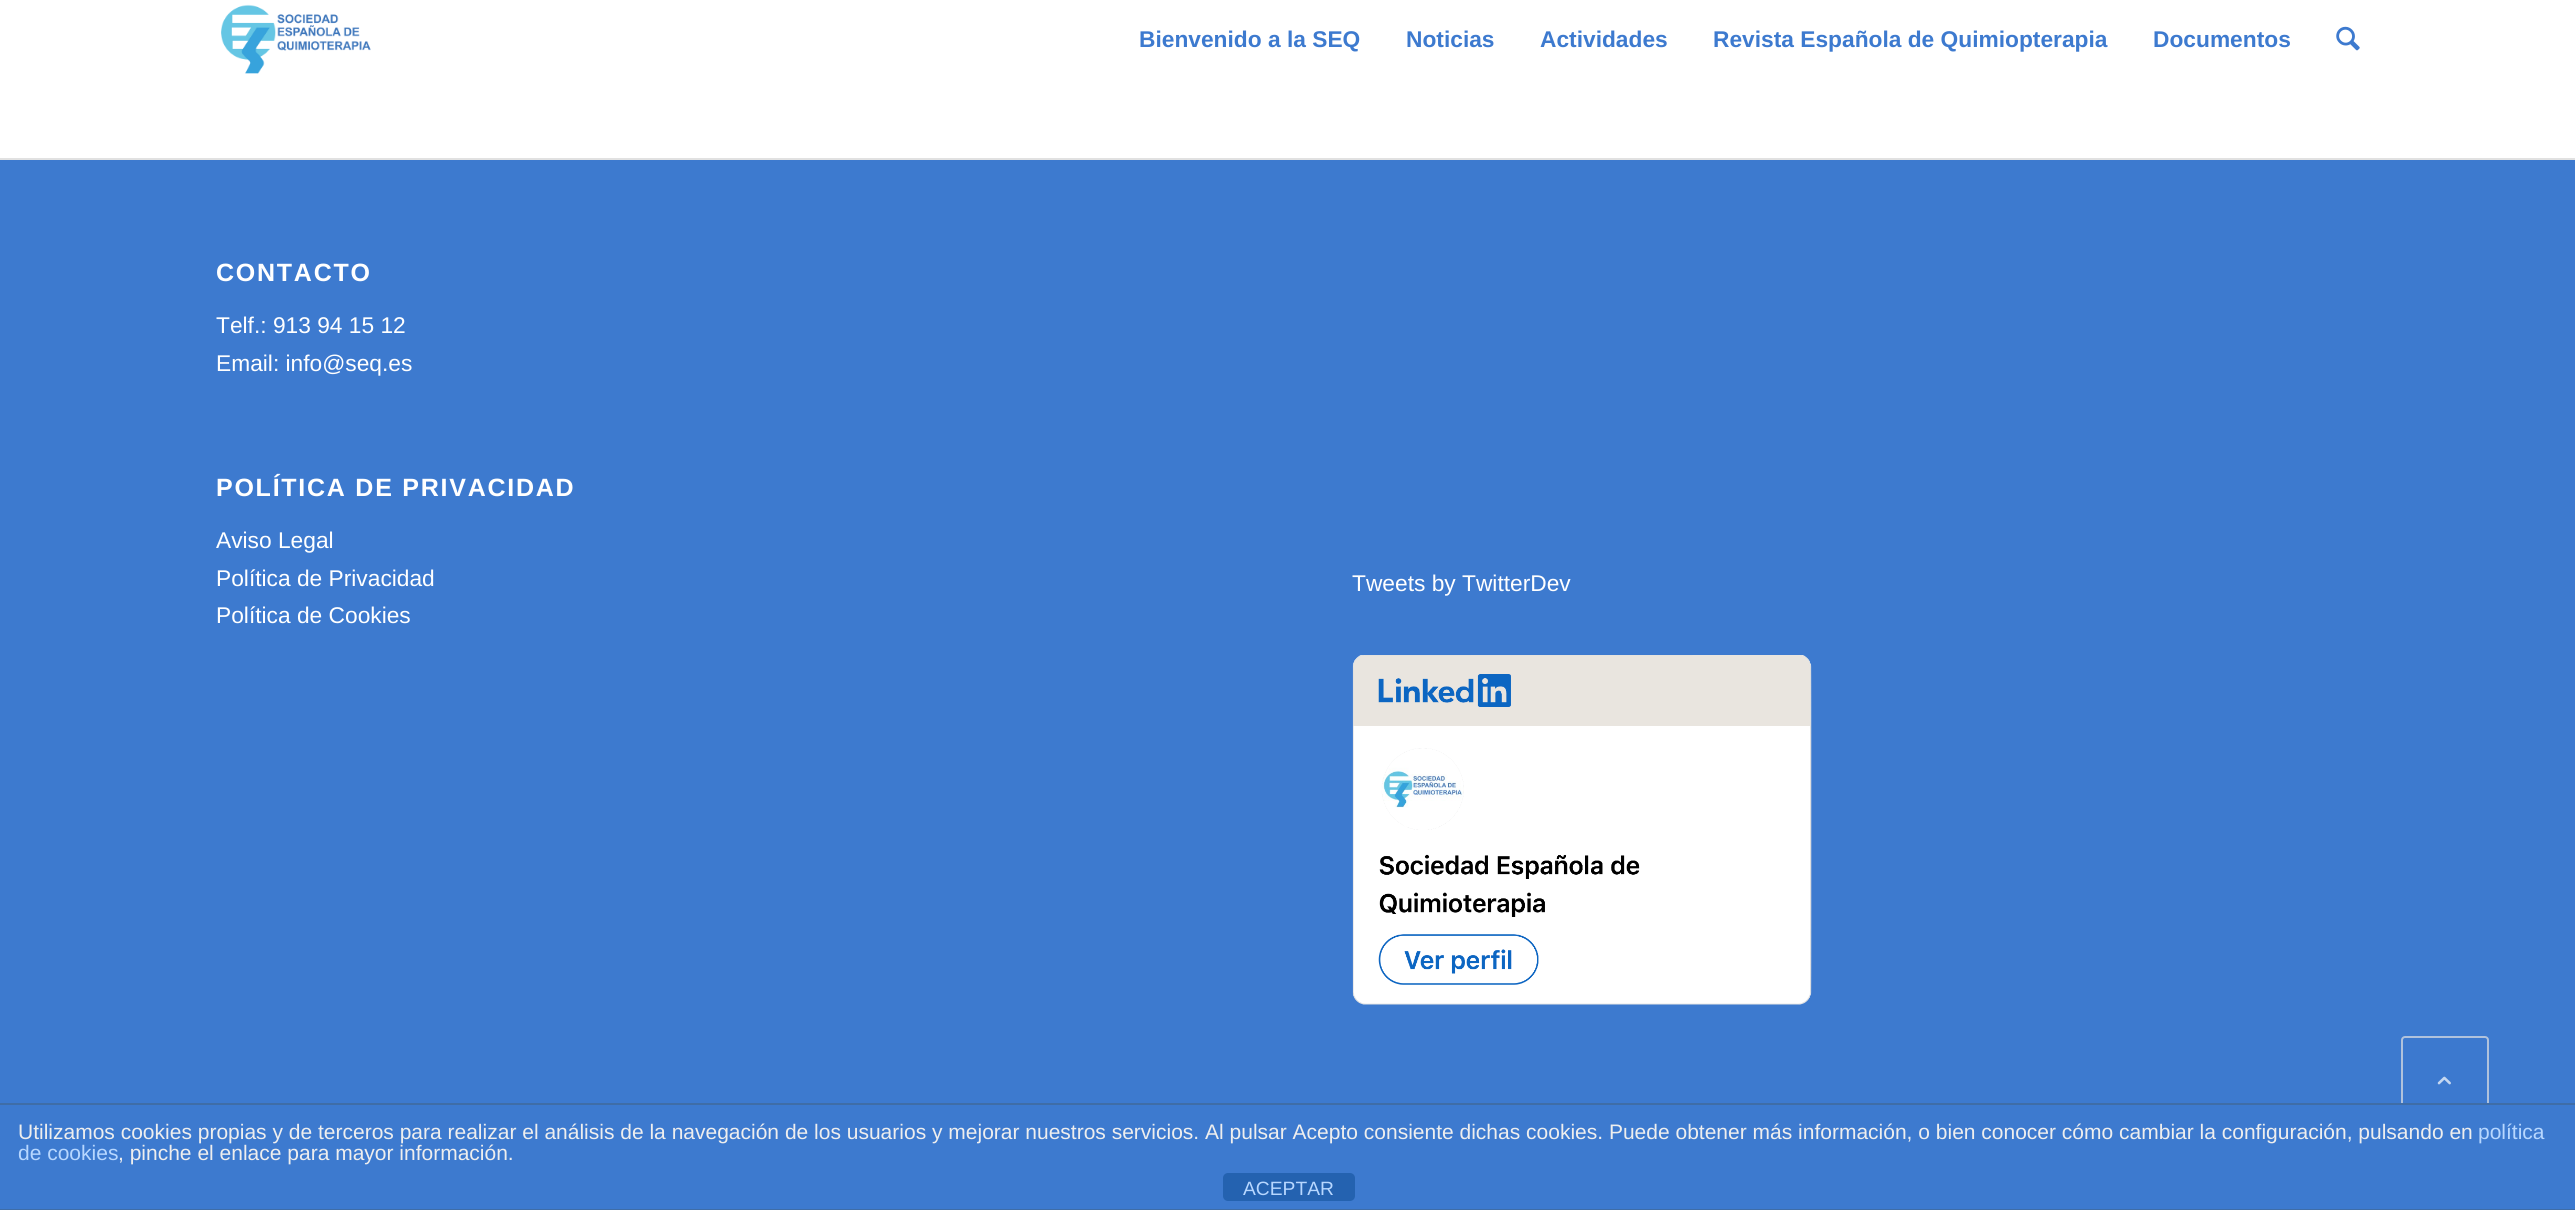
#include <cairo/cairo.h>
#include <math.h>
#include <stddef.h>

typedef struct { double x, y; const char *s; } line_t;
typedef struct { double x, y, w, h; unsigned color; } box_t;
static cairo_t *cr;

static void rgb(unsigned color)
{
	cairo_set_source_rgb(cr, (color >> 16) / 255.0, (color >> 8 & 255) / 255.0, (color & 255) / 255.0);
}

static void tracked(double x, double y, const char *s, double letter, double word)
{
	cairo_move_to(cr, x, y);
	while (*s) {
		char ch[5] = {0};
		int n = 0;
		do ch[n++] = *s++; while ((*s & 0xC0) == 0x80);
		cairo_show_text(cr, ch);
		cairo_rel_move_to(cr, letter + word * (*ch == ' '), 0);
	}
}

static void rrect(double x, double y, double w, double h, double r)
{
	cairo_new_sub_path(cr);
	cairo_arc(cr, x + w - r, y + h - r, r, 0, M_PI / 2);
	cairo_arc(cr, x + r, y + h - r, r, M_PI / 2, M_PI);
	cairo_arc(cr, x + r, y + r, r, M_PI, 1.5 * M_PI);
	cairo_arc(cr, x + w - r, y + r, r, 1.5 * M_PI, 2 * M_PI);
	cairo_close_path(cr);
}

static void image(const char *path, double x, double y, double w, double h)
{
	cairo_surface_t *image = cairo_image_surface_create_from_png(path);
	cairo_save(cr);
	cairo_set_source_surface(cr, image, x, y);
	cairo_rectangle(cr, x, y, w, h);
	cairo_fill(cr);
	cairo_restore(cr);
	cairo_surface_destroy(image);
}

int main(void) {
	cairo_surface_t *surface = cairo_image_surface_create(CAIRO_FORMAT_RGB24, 2575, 1210);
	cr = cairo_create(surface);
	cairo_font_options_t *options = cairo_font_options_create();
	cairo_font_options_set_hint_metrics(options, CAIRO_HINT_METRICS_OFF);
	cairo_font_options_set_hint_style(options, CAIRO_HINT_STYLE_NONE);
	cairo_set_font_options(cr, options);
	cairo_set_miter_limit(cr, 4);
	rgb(0xffffff);
	cairo_paint(cr);
	image("img/1.png", 221, 4, 150, 70);
	image("img/2.png", 2336, 26, 24, 25);
	rgb(0x3d7acf);
	cairo_rectangle(cr, 0, 160, 2575, 943);
	cairo_fill(cr);
	rgb(0xe1e1e1);
	cairo_rectangle(cr, 0, 158, 2575, 2);
	cairo_fill(cr);
	image("img/3.png", 1352, 655, 460, 350);
	cairo_set_source_rgba(cr, 0.239, 0.478, 0.812, 0.7);
	rrect(2401, 1036, 88, 88, 4);
	cairo_fill(cr);
	rrect(2402, 1037, 86, 86, 3);
	cairo_set_source_rgba(cr, 0.882, 0.882, 0.882, 0.7);
	cairo_stroke(cr);
	image("img/4.png", 2437, 1076, 14, 9);
	{
		static const box_t items[] = {
			{0, 1105, 2575, 104, 0x3d7acf},
			{0, 1103, 2575, 2, 0x3f6da7},
			{0, 1209, 2575, 1, 0x3f6da7},
		};
		for (size_t i = 0; i < sizeof items / sizeof *items; i++) {
			rgb(items[i].color);
			cairo_rectangle(cr, items[i].x, items[i].y, items[i].w, items[i].h);
			cairo_fill(cr);
		}
	}
	rgb(0x2462b0);
	rrect(1223, 1173, 132, 28, 5);
	cairo_fill(cr);
	cairo_select_font_face(cr, "Liberation Sans", CAIRO_FONT_SLANT_NORMAL, CAIRO_FONT_WEIGHT_BOLD);
	cairo_set_font_size(cr, 22.75);
	rgb(0x3d7acf);
	{
		static const line_t items[] = {
			{1139, 47, "Bienvenido a la SEQ"},
			{1406, 47, "Noticias"},
			{1540, 47, "Actividades"},
			{1713, 47, "Revista Española de Quimiopterapia"},
			{2153, 47, "Documentos"},
		};
		for (size_t i = 0; i < sizeof items / sizeof *items; i++) {
			cairo_move_to(cr, items[i].x, items[i].y);
			cairo_show_text(cr, items[i].s);
		}
	}
	cairo_set_font_size(cr, 25);
	rgb(0xffffff);
	tracked(216, 281, "CONTACTO", 1.75, 0);
	cairo_select_font_face(cr, "Liberation Sans", CAIRO_FONT_SLANT_NORMAL, CAIRO_FONT_WEIGHT_NORMAL);
	cairo_set_font_size(cr, 22.75);
	cairo_move_to(cr, 216, 333);
	cairo_show_text(cr, "Telf.: 913 94 15 12");
	cairo_move_to(cr, 216, 371);
	cairo_show_text(cr, "Email: info@seq.es");
	cairo_select_font_face(cr, "Liberation Sans", CAIRO_FONT_SLANT_NORMAL, CAIRO_FONT_WEIGHT_BOLD);
	cairo_set_font_size(cr, 25);
	tracked(216, 496, "POLÍTICA DE PRIVACIDAD", 1.75, 0);
	cairo_select_font_face(cr, "Liberation Sans", CAIRO_FONT_SLANT_NORMAL, CAIRO_FONT_WEIGHT_NORMAL);
	cairo_set_font_size(cr, 22.75);
	{
		static const line_t items[] = {
			{216, 548, "Aviso Legal"},
			{216, 586, "Política de Privacidad"},
			{216, 623, "Política de Cookies"},
			{1352, 591, "Tweets by TwitterDev"},
		};
		for (size_t i = 0; i < sizeof items / sizeof *items; i++) {
			cairo_move_to(cr, items[i].x, items[i].y);
			cairo_show_text(cr, items[i].s);
		}
	}
	cairo_set_font_size(cr, 21);
	rgb(0xeeeeee);
	cairo_move_to(cr, 18, 1139);
	cairo_show_text(cr, "Utilizamos cookies propias y de terceros para realizar el análisis de la navegación de los usuarios y mejorar nuestros servicios. Al pulsar Acepto consiente dichas cookies. Puede obtener más información, o bien conocer cómo cambiar la configuración, pulsando en");
	rgb(0xb7d7ff);
	cairo_move_to(cr, 2478, 1139);
	cairo_show_text(cr, "política");
	cairo_move_to(cr, 18, 1160);
	cairo_show_text(cr, "de cookies");
	rgb(0xeeeeee);
	cairo_move_to(cr, 118, 1160);
	cairo_show_text(cr, ", pinche el enlace para mayor información.");
	cairo_set_font_size(cr, 19.25);
	rgb(0xb7d7ff);
	cairo_move_to(cr, 1243, 1195);
	cairo_show_text(cr, "ACEPTAR");
	cairo_surface_write_to_png(surface, "page.png");
	cairo_font_options_destroy(options);
	cairo_destroy(cr);
	cairo_surface_destroy(surface);
	return 0;
}
